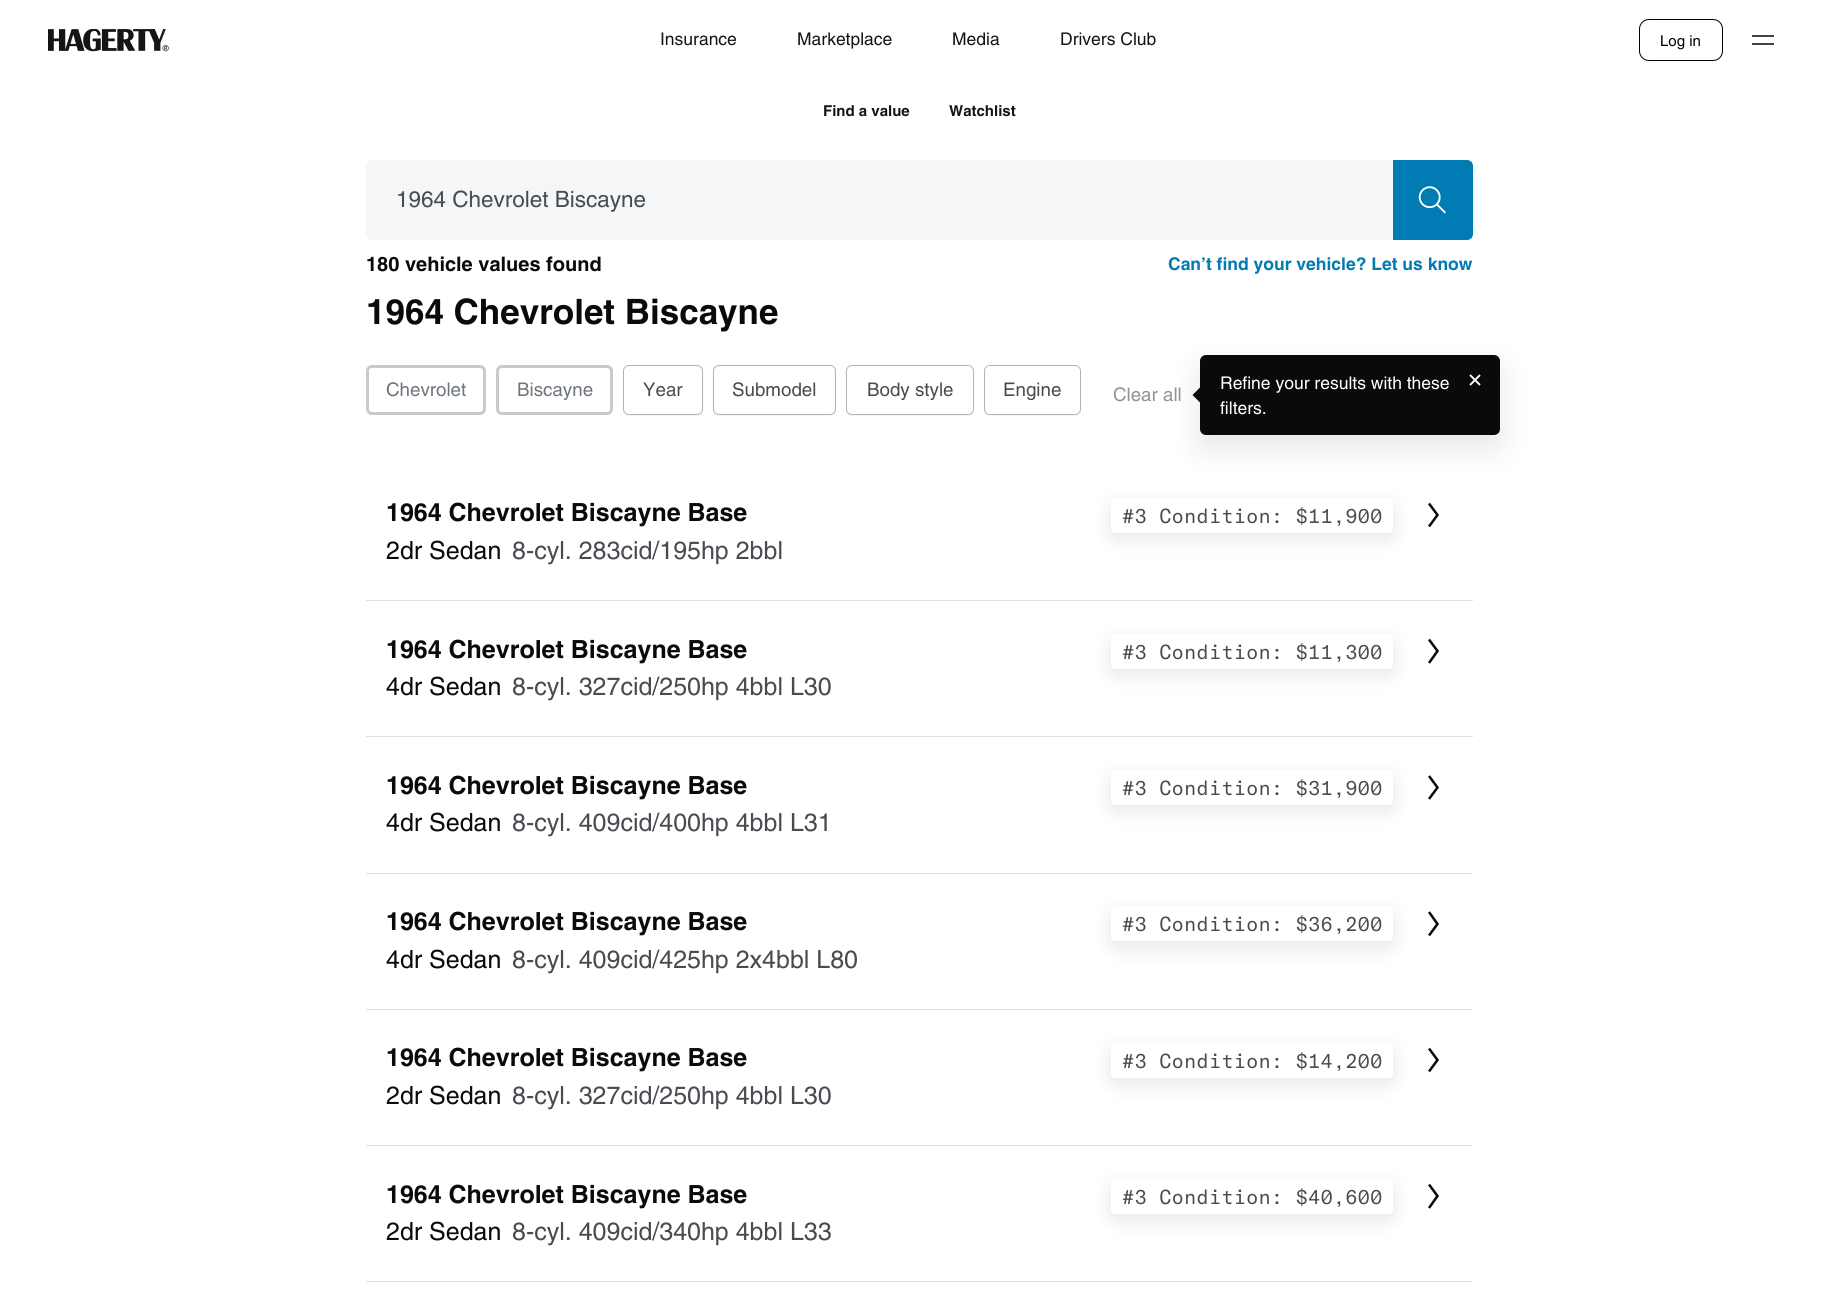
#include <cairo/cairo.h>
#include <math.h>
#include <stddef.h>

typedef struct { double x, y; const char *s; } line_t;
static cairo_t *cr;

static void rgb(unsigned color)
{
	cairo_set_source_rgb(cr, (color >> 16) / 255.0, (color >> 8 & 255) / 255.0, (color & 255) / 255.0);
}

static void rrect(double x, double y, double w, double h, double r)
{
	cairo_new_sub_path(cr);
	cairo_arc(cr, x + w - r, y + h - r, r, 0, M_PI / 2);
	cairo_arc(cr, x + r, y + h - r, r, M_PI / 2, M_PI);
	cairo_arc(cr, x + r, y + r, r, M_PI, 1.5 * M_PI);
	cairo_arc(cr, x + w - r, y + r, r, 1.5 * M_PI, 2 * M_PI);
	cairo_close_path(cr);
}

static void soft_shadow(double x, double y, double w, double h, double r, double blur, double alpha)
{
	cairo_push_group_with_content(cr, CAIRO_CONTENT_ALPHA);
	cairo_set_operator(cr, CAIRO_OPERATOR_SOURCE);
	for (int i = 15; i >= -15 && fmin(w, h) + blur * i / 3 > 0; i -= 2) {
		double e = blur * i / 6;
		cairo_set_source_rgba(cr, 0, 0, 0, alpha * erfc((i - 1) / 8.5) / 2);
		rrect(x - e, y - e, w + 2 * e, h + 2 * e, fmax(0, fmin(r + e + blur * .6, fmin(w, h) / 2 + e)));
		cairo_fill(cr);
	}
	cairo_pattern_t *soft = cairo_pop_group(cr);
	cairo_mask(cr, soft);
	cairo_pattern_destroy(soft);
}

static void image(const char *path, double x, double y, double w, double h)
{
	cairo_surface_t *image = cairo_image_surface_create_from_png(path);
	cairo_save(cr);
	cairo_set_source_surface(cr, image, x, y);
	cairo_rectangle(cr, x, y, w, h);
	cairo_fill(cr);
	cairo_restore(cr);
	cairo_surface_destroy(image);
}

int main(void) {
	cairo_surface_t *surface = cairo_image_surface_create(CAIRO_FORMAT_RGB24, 1838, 1316);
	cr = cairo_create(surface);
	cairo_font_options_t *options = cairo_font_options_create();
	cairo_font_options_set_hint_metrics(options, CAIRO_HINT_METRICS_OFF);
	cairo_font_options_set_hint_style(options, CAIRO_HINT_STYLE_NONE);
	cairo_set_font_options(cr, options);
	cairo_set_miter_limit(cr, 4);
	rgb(0xffffff);
	cairo_paint(cr);
	image("img/1.png", 48, 29, 121, 23);
	rrect(1639.5, 19.5, 83, 41, 9.5);
	rgb(0x000000);
	cairo_set_line_width(cr, 1);
	cairo_stroke(cr);
	rgb(0x444446);
	cairo_rectangle(cr, 1752, 35, 22, 2);
	cairo_fill(cr);
	cairo_rectangle(cr, 1752, 43, 22, 2);
	cairo_fill(cr);
	rgb(0xf4f6f8);
	cairo_new_path(cr);
	cairo_move_to(cr, 372, 160);
	cairo_line_to(cr, 1393, 160);
	cairo_line_to(cr, 1393, 240);
	cairo_line_to(cr, 372, 240);
	cairo_curve_to(cr, 368.5, 240, 366, 237.5, 366, 234);
	cairo_line_to(cr, 366, 166);
	cairo_curve_to(cr, 366, 162.5, 368.5, 160, 372, 160);
	cairo_close_path(cr);
	cairo_fill(cr);
	rgb(0x007bb3);
	cairo_new_path(cr);
	cairo_move_to(cr, 1394.5, 161.5);
	cairo_line_to(cr, 1467, 161.5);
	cairo_curve_to(cr, 1469.5, 161.5, 1471.5, 163.5, 1471.5, 166);
	cairo_line_to(cr, 1471.5, 234);
	cairo_curve_to(cr, 1471.5, 236.5, 1469.5, 238.5, 1467, 238.5);
	cairo_line_to(cr, 1394.5, 238.5);
	cairo_close_path(cr);
	cairo_fill_preserve(cr);
	cairo_set_line_width(cr, 3);
	cairo_stroke(cr);
	image("img/2.png", 1418, 186, 28, 28);
	rrect(367.5, 366.5, 117, 47, 4.5);
	rgb(0xc8cacb);
	cairo_stroke(cr);
	rrect(497.5, 366.5, 114, 47, 4.5);
	cairo_stroke(cr);
	rgb(0x090a0b);
	soft_shadow(623, 366, 80, 50, 6, 0.5, 0.05);
	rgb(0xffffff);
	rrect(623.5, 365.5, 79, 49, 5.5);
	cairo_fill_preserve(cr);
	rgb(0xb1b5b9);
	cairo_set_line_width(cr, 1);
	cairo_stroke(cr);
	rgb(0x090a0b);
	soft_shadow(713, 366, 123, 50, 6, 0.5, 0.05);
	rgb(0xffffff);
	rrect(713.5, 365.5, 122, 49, 5.5);
	cairo_fill_preserve(cr);
	rgb(0xb1b5b9);
	cairo_stroke(cr);
	rgb(0x090a0b);
	soft_shadow(846, 366, 128, 50, 6, 0.5, 0.05);
	rgb(0xffffff);
	rrect(846.5, 365.5, 127, 49, 5.5);
	cairo_fill_preserve(cr);
	rgb(0xb1b5b9);
	cairo_stroke(cr);
	rgb(0x090a0b);
	soft_shadow(984, 366, 97, 50, 6, 0.5, 0.05);
	rgb(0xffffff);
	rrect(984.5, 365.5, 96, 49, 5.5);
	cairo_fill_preserve(cr);
	rgb(0xb1b5b9);
	cairo_stroke(cr);
	rgb(0xdee0e2);
	cairo_rectangle(cr, 366, 600, 1107, 1);
	cairo_fill(cr);
	rgb(0x090a0b);
	soft_shadow(1111, 504, 282, 35, 4, 9.5, 0.1);
	rgb(0xffffff);
	rrect(1111, 498, 282, 35, 4);
	cairo_fill(cr);
	cairo_new_path(cr);
	cairo_move_to(cr, 1429, 503.5);
	cairo_line_to(cr, 1437.5, 515);
	cairo_line_to(cr, 1429, 526.5);
	rgb(0x090a0b);
	cairo_set_line_width(cr, 2.5);
	cairo_stroke(cr);
	rgb(0xdee0e2);
	cairo_rectangle(cr, 366, 736, 1107, 1);
	cairo_fill(cr);
	rgb(0x090a0b);
	soft_shadow(1111, 640, 282, 35, 4, 9.5, 0.1);
	rgb(0xffffff);
	rrect(1111, 634, 282, 35, 4);
	cairo_fill(cr);
	cairo_new_path(cr);
	cairo_move_to(cr, 1429, 639.5);
	cairo_line_to(cr, 1437.5, 651);
	cairo_line_to(cr, 1429, 663);
	rgb(0x090a0b);
	cairo_stroke(cr);
	rgb(0xdee0e2);
	cairo_rectangle(cr, 366, 873, 1107, 1);
	cairo_fill(cr);
	rgb(0x090a0b);
	soft_shadow(1111, 776, 282, 35, 4, 9.5, 0.1);
	rgb(0xffffff);
	rrect(1111, 770, 282, 35, 4);
	cairo_fill(cr);
	cairo_new_path(cr);
	cairo_move_to(cr, 1429, 776);
	cairo_line_to(cr, 1437.5, 787.5);
	cairo_line_to(cr, 1429, 799);
	rgb(0x090a0b);
	cairo_stroke(cr);
	rgb(0xdee0e2);
	cairo_rectangle(cr, 366, 1009, 1107, 1);
	cairo_fill(cr);
	rgb(0x090a0b);
	soft_shadow(1111, 913, 282, 35, 4, 9.5, 0.1);
	rgb(0xffffff);
	rrect(1111, 906, 282, 35, 4);
	cairo_fill(cr);
	cairo_new_path(cr);
	cairo_move_to(cr, 1429, 912);
	cairo_line_to(cr, 1437.5, 924);
	cairo_line_to(cr, 1429, 935.5);
	rgb(0x090a0b);
	cairo_stroke(cr);
	rgb(0xdee0e2);
	cairo_rectangle(cr, 366, 1145, 1107, 1);
	cairo_fill(cr);
	rgb(0x090a0b);
	soft_shadow(1111, 1049, 282, 35, 4, 9.5, 0.1);
	rgb(0xffffff);
	rrect(1111, 1043, 282, 35, 4);
	cairo_fill(cr);
	cairo_new_path(cr);
	cairo_move_to(cr, 1429, 1048.5);
	cairo_line_to(cr, 1437.5, 1060);
	cairo_line_to(cr, 1429, 1071.5);
	rgb(0x090a0b);
	cairo_stroke(cr);
	rgb(0xdee0e2);
	cairo_rectangle(cr, 366, 1281, 1107, 1);
	cairo_fill(cr);
	rgb(0x090a0b);
	soft_shadow(1111, 1185, 282, 35, 4, 9.5, 0.1);
	rgb(0xffffff);
	rrect(1111, 1179, 282, 35, 4);
	cairo_fill(cr);
	cairo_new_path(cr);
	cairo_move_to(cr, 1429, 1184.5);
	cairo_line_to(cr, 1437.5, 1196);
	cairo_line_to(cr, 1429, 1208);
	rgb(0x090a0b);
	cairo_stroke(cr);
	rgb(0x090a0b);
	soft_shadow(1200, 368, 300, 80, 6, 15.5, 0.1);
	rgb(0x090a0b);
	rrect(1200, 355, 300, 80, 6);
	cairo_fill(cr);
	cairo_new_path(cr);
	cairo_move_to(cr, 1200, 387.5);
	cairo_line_to(cr, 1200, 402.5);
	cairo_line_to(cr, 1192.5, 395);
	cairo_close_path(cr);
	cairo_fill(cr);
	cairo_new_path(cr);
	cairo_move_to(cr, 1470, 375);
	cairo_line_to(cr, 1480, 385);
	cairo_move_to(cr, 1480, 375);
	cairo_line_to(cr, 1470, 385);
	rgb(0xffffff);
	cairo_set_line_width(cr, 1.9);
	cairo_stroke(cr);
	cairo_select_font_face(cr, "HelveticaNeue", CAIRO_FONT_SLANT_NORMAL, CAIRO_FONT_WEIGHT_NORMAL);
	cairo_set_font_size(cr, 17.5);
	rgb(0x151518);
	{
		static const line_t items[] = {
			{660, 45, "Insurance"},
			{797, 45, "Marketplace"},
			{952, 45, "Media"},
			{1060, 45, "Drivers Club"},
		};
		for (size_t i = 0; i < sizeof items / sizeof *items; i++) {
			cairo_move_to(cr, items[i].x, items[i].y);
			cairo_show_text(cr, items[i].s);
		}
	}
	cairo_set_font_size(cr, 15);
	rgb(0x000000);
	cairo_move_to(cr, 1660, 46);
	cairo_show_text(cr, "Log in");
	cairo_select_font_face(cr, "HelveticaNeue", CAIRO_FONT_SLANT_NORMAL, CAIRO_FONT_WEIGHT_BOLD);
	rgb(0x151518);
	cairo_move_to(cr, 823, 116);
	cairo_show_text(cr, "Find a value");
	cairo_move_to(cr, 949, 116);
	cairo_show_text(cr, "Watchlist");
	cairo_select_font_face(cr, "HelveticaNeue", CAIRO_FONT_SLANT_NORMAL, CAIRO_FONT_WEIGHT_NORMAL);
	cairo_set_font_size(cr, 22.5);
	rgb(0x484c51);
	cairo_move_to(cr, 396, 207);
	cairo_show_text(cr, "1964 Chevrolet Biscayne");
	cairo_select_font_face(cr, "HelveticaNeue", CAIRO_FONT_SLANT_NORMAL, CAIRO_FONT_WEIGHT_BOLD);
	cairo_set_font_size(cr, 20);
	rgb(0x090a0b);
	cairo_move_to(cr, 366, 271);
	cairo_show_text(cr, "180 vehicle values found");
	cairo_set_font_size(cr, 17.5);
	rgb(0x007bb3);
	cairo_move_to(cr, 1168, 270);
	cairo_show_text(cr, "Can’t find your vehicle? Let us know");
	cairo_set_font_size(cr, 35);
	rgb(0x090a0b);
	cairo_move_to(cr, 366, 324);
	cairo_show_text(cr, "1964 Chevrolet Biscayne");
	cairo_select_font_face(cr, "HelveticaNeue", CAIRO_FONT_SLANT_NORMAL, CAIRO_FONT_WEIGHT_NORMAL);
	cairo_set_font_size(cr, 18.75);
	rgb(0x6f757c);
	cairo_move_to(cr, 386, 396);
	cairo_show_text(cr, "Chevrolet");
	cairo_move_to(cr, 517, 396);
	cairo_show_text(cr, "Biscayne");
	rgb(0x484c51);
	{
		static const line_t items[] = {
			{643, 396, "Year"},
			{732, 396, "Submodel"},
			{867, 396, "Body style"},
			{1003, 396, "Engine"},
		};
		for (size_t i = 0; i < sizeof items / sizeof *items; i++) {
			cairo_move_to(cr, items[i].x, items[i].y);
			cairo_show_text(cr, items[i].s);
		}
	}
	rgb(0x8e949a);
	cairo_move_to(cr, 1113, 401);
	cairo_show_text(cr, "Clear all");
	cairo_select_font_face(cr, "HelveticaNeue", CAIRO_FONT_SLANT_NORMAL, CAIRO_FONT_WEIGHT_BOLD);
	cairo_set_font_size(cr, 25);
	rgb(0x090a0b);
	cairo_move_to(cr, 386, 521);
	cairo_show_text(cr, "1964 Chevrolet Biscayne Base");
	cairo_select_font_face(cr, "HelveticaNeue", CAIRO_FONT_SLANT_NORMAL, CAIRO_FONT_WEIGHT_NORMAL);
	cairo_move_to(cr, 386, 559);
	cairo_show_text(cr, "2dr Sedan");
	rgb(0x484c51);
	cairo_move_to(cr, 512, 559);
	cairo_show_text(cr, "8-cyl. 283cid/195hp 2bbl");
	cairo_select_font_face(cr, "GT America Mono", CAIRO_FONT_SLANT_NORMAL, CAIRO_FONT_WEIGHT_NORMAL);
	cairo_set_font_size(cr, 20);
	cairo_move_to(cr, 1122, 523);
	cairo_show_text(cr, "#3 Condition: $11,900");
	cairo_select_font_face(cr, "HelveticaNeue", CAIRO_FONT_SLANT_NORMAL, CAIRO_FONT_WEIGHT_BOLD);
	cairo_set_font_size(cr, 25);
	rgb(0x090a0b);
	cairo_move_to(cr, 386, 658);
	cairo_show_text(cr, "1964 Chevrolet Biscayne Base");
	cairo_select_font_face(cr, "HelveticaNeue", CAIRO_FONT_SLANT_NORMAL, CAIRO_FONT_WEIGHT_NORMAL);
	cairo_move_to(cr, 386, 695);
	cairo_show_text(cr, "4dr Sedan");
	rgb(0x484c51);
	cairo_move_to(cr, 512, 695);
	cairo_show_text(cr, "8-cyl. 327cid/250hp 4bbl L30");
	cairo_select_font_face(cr, "GT America Mono", CAIRO_FONT_SLANT_NORMAL, CAIRO_FONT_WEIGHT_NORMAL);
	cairo_set_font_size(cr, 20);
	cairo_move_to(cr, 1122, 659);
	cairo_show_text(cr, "#3 Condition: $11,300");
	cairo_select_font_face(cr, "HelveticaNeue", CAIRO_FONT_SLANT_NORMAL, CAIRO_FONT_WEIGHT_BOLD);
	cairo_set_font_size(cr, 25);
	rgb(0x090a0b);
	cairo_move_to(cr, 386, 794);
	cairo_show_text(cr, "1964 Chevrolet Biscayne Base");
	cairo_select_font_face(cr, "HelveticaNeue", CAIRO_FONT_SLANT_NORMAL, CAIRO_FONT_WEIGHT_NORMAL);
	cairo_move_to(cr, 386, 831);
	cairo_show_text(cr, "4dr Sedan");
	rgb(0x484c51);
	cairo_move_to(cr, 512, 831);
	cairo_show_text(cr, "8-cyl. 409cid/400hp 4bbl L31");
	cairo_select_font_face(cr, "GT America Mono", CAIRO_FONT_SLANT_NORMAL, CAIRO_FONT_WEIGHT_NORMAL);
	cairo_set_font_size(cr, 20);
	cairo_move_to(cr, 1122, 795);
	cairo_show_text(cr, "#3 Condition: $31,900");
	cairo_select_font_face(cr, "HelveticaNeue", CAIRO_FONT_SLANT_NORMAL, CAIRO_FONT_WEIGHT_BOLD);
	cairo_set_font_size(cr, 25);
	rgb(0x090a0b);
	cairo_move_to(cr, 386, 930);
	cairo_show_text(cr, "1964 Chevrolet Biscayne Base");
	cairo_select_font_face(cr, "HelveticaNeue", CAIRO_FONT_SLANT_NORMAL, CAIRO_FONT_WEIGHT_NORMAL);
	cairo_move_to(cr, 386, 968);
	cairo_show_text(cr, "4dr Sedan");
	rgb(0x484c51);
	cairo_move_to(cr, 512, 968);
	cairo_show_text(cr, "8-cyl. 409cid/425hp 2x4bbl L80");
	cairo_select_font_face(cr, "GT America Mono", CAIRO_FONT_SLANT_NORMAL, CAIRO_FONT_WEIGHT_NORMAL);
	cairo_set_font_size(cr, 20);
	cairo_move_to(cr, 1122, 931);
	cairo_show_text(cr, "#3 Condition: $36,200");
	cairo_select_font_face(cr, "HelveticaNeue", CAIRO_FONT_SLANT_NORMAL, CAIRO_FONT_WEIGHT_BOLD);
	cairo_set_font_size(cr, 25);
	rgb(0x090a0b);
	cairo_move_to(cr, 386, 1066);
	cairo_show_text(cr, "1964 Chevrolet Biscayne Base");
	cairo_select_font_face(cr, "HelveticaNeue", CAIRO_FONT_SLANT_NORMAL, CAIRO_FONT_WEIGHT_NORMAL);
	cairo_move_to(cr, 386, 1104);
	cairo_show_text(cr, "2dr Sedan");
	rgb(0x484c51);
	cairo_move_to(cr, 512, 1104);
	cairo_show_text(cr, "8-cyl. 327cid/250hp 4bbl L30");
	cairo_select_font_face(cr, "GT America Mono", CAIRO_FONT_SLANT_NORMAL, CAIRO_FONT_WEIGHT_NORMAL);
	cairo_set_font_size(cr, 20);
	cairo_move_to(cr, 1122, 1068);
	cairo_show_text(cr, "#3 Condition: $14,200");
	cairo_select_font_face(cr, "HelveticaNeue", CAIRO_FONT_SLANT_NORMAL, CAIRO_FONT_WEIGHT_BOLD);
	cairo_set_font_size(cr, 25);
	rgb(0x090a0b);
	cairo_move_to(cr, 386, 1203);
	cairo_show_text(cr, "1964 Chevrolet Biscayne Base");
	cairo_select_font_face(cr, "HelveticaNeue", CAIRO_FONT_SLANT_NORMAL, CAIRO_FONT_WEIGHT_NORMAL);
	cairo_move_to(cr, 386, 1240);
	cairo_show_text(cr, "2dr Sedan");
	rgb(0x484c51);
	cairo_move_to(cr, 512, 1240);
	cairo_show_text(cr, "8-cyl. 409cid/340hp 4bbl L33");
	cairo_select_font_face(cr, "GT America Mono", CAIRO_FONT_SLANT_NORMAL, CAIRO_FONT_WEIGHT_NORMAL);
	cairo_set_font_size(cr, 20);
	cairo_move_to(cr, 1122, 1204);
	cairo_show_text(cr, "#3 Condition: $40,600");
	cairo_select_font_face(cr, "HelveticaNeue", CAIRO_FONT_SLANT_NORMAL, CAIRO_FONT_WEIGHT_NORMAL);
	cairo_set_font_size(cr, 17.5);
	rgb(0xffffff);
	cairo_move_to(cr, 1220, 389);
	cairo_show_text(cr, "Refine your results with these");
	cairo_move_to(cr, 1220, 414);
	cairo_show_text(cr, "filters.");
	cairo_surface_write_to_png(surface, "page.png");
	cairo_font_options_destroy(options);
	cairo_destroy(cr);
	cairo_surface_destroy(surface);
	return 0;
}
